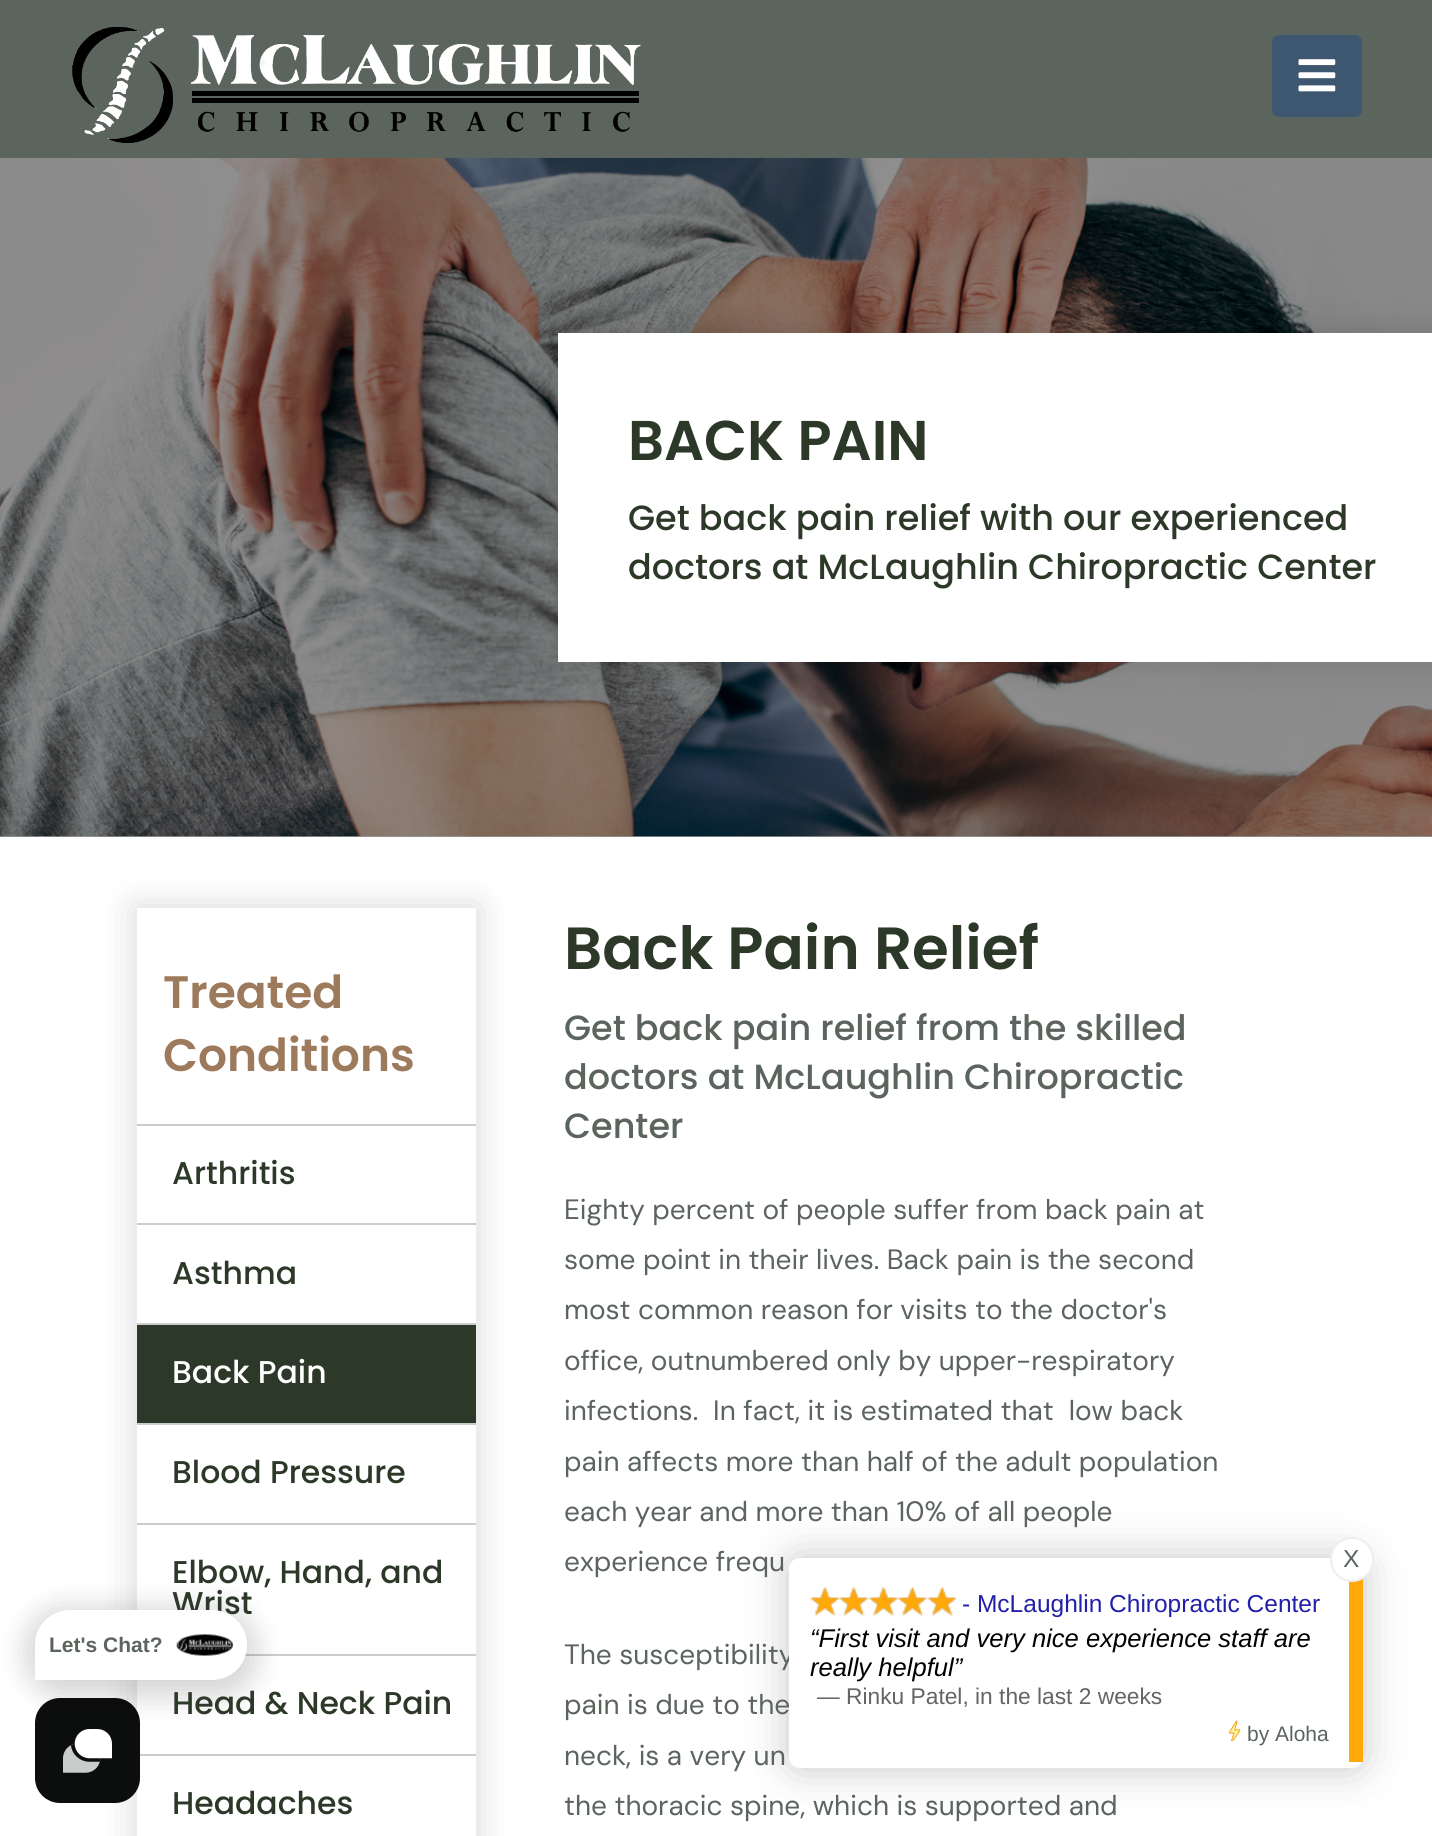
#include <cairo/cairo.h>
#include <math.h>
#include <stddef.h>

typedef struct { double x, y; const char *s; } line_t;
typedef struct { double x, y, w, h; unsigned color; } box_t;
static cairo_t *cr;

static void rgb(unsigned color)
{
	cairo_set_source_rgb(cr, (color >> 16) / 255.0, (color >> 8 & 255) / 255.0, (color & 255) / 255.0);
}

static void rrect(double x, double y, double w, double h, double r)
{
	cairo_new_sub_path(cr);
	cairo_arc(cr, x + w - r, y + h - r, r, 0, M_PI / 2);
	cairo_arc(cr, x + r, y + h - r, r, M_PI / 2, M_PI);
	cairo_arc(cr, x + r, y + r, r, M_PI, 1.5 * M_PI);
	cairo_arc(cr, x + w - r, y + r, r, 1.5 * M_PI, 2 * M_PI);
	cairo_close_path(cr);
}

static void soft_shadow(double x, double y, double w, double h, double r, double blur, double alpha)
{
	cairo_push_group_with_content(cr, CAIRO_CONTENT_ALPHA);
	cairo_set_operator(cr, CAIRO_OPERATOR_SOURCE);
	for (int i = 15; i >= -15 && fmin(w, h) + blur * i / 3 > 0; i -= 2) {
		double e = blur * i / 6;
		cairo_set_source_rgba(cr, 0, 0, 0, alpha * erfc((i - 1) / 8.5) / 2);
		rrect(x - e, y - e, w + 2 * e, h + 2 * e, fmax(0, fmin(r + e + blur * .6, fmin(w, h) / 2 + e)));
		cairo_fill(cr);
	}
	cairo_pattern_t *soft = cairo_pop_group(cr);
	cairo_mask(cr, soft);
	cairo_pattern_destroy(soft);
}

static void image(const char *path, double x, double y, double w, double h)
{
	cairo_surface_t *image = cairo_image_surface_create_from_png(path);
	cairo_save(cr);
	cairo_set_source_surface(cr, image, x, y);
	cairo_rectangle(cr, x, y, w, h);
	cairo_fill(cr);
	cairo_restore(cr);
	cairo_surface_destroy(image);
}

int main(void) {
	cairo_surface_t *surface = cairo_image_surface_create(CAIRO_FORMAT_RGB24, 1432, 1836);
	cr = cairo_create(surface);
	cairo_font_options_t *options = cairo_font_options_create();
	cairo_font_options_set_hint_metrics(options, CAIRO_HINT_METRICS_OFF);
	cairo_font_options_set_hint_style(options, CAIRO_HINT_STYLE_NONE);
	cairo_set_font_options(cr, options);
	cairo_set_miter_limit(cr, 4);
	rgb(0xffffff);
	cairo_paint(cr);
	rgb(0x999999);
	cairo_rectangle(cr, 0, 836, 1432, 1);
	cairo_fill(cr);
	rgb(0x5c645e);
	cairo_rectangle(cr, 0, 0, 1432, 158);
	cairo_fill(cr);
	image("img/1.png", 72, 27, 569, 116);
	rgb(0x3e5771);
	rrect(1272, 35, 90, 82, 7);
	cairo_fill(cr);
	image("img/2.png", 1298, 59, 38, 33);
	image("img/3.png", 0, 158, 1432, 679);
	rgb(0x000000);
	soft_shadow(557, 331, 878, 332, 0, 17.5, 0.15);
	rgb(0xffffff);
	cairo_rectangle(cr, 558, 333, 874, 329);
	cairo_fill(cr);
	cairo_save(cr);
	cairo_set_fill_rule(cr, CAIRO_FILL_RULE_EVEN_ODD);
	cairo_new_path(cr);
	cairo_move_to(cr, 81, 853);
	cairo_line_to(cr, 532, 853);
	cairo_line_to(cr, 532, 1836);
	cairo_line_to(cr, 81, 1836);
	cairo_close_path(cr);
	cairo_move_to(cr, 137, 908);
	cairo_line_to(cr, 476, 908);
	cairo_line_to(cr, 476, 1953);
	cairo_line_to(cr, 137, 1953);
	cairo_close_path(cr);
	cairo_clip(cr);
	rgb(0x000000);
	soft_shadow(135, 907, 343, 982, 0, 17.5, 0.15);
	cairo_restore(cr);
	{
		static const box_t items[] = {
			{137, 1124, 339, 2, 0xcccccc},
			{137, 1223, 339, 2, 0xcccccc},
			{137, 1325, 339, 98, 0x2d3928},
			{137, 1323, 339, 2, 0xcccccc},
			{137, 1423, 339, 2, 0xcccccc},
			{137, 1523, 339, 2, 0xcccccc},
			{245, 1654, 231, 2, 0xcccccc},
			{137, 1754, 339, 2, 0xcccccc},
		};
		for (size_t i = 0; i < sizeof items / sizeof *items; i++) {
			rgb(items[i].color);
			cairo_rectangle(cr, items[i].x, items[i].y, items[i].w, items[i].h);
			cairo_fill(cr);
		}
	}
	rgb(0x0c0d0d);
	rrect(35, 1698, 105, 105, 25);
	cairo_fill(cr);
	image("img/5.png", 63, 1729, 49, 44);
	rgb(0x000000);
	soft_shadow(25, 1607, 232, 91, 45.5, 14, 0.16);
	rgb(0xa0a0a0);
	soft_shadow(789, 1558, 574, 210, 11, 21, 0.6);
	cairo_select_font_face(cr, "Poppins SemiBold", CAIRO_FONT_SLANT_NORMAL, CAIRO_FONT_WEIGHT_NORMAL);
	cairo_set_font_size(cr, 56);
	rgb(0x2d3928);
	cairo_move_to(cr, 628, 460);
	cairo_show_text(cr, "BACK PAIN");
	cairo_select_font_face(cr, "Poppins Medium", CAIRO_FONT_SLANT_NORMAL, CAIRO_FONT_WEIGHT_NORMAL);
	cairo_set_font_size(cr, 35);
	cairo_move_to(cr, 628, 530);
	cairo_show_text(cr, "Get back pain relief with our experienced");
	cairo_move_to(cr, 628, 579);
	cairo_show_text(cr, "doctors at McLaughlin Chiropractic Center");
	cairo_select_font_face(cr, "Poppins SemiBold", CAIRO_FONT_SLANT_NORMAL, CAIRO_FONT_WEIGHT_NORMAL);
	cairo_set_font_size(cr, 45.5);
	rgb(0x9d7a5b);
	cairo_move_to(cr, 163, 1008);
	cairo_show_text(cr, "Treated");
	cairo_move_to(cr, 163, 1071);
	cairo_show_text(cr, "Conditions");
	cairo_select_font_face(cr, "Poppins Medium", CAIRO_FONT_SLANT_NORMAL, CAIRO_FONT_WEIGHT_NORMAL);
	cairo_set_font_size(cr, 31.5);
	rgb(0x2d3928);
	cairo_move_to(cr, 172, 1184);
	cairo_show_text(cr, "Arthritis");
	cairo_move_to(cr, 172, 1284);
	cairo_show_text(cr, "Asthma");
	rgb(0xffffff);
	cairo_move_to(cr, 172, 1383);
	cairo_show_text(cr, "Back Pain");
	rgb(0x2d3928);
	{
		static const line_t items[] = {
			{172, 1483, "Blood Pressure"},
			{172, 1583, "Elbow, Hand, and"},
			{172, 1614, "Wrist"},
			{172, 1714, "Head & Neck Pain"},
			{172, 1814, "Headaches"},
		};
		for (size_t i = 0; i < sizeof items / sizeof *items; i++) {
			cairo_move_to(cr, items[i].x, items[i].y);
			cairo_show_text(cr, items[i].s);
		}
	}
	cairo_select_font_face(cr, "Poppins SemiBold", CAIRO_FONT_SLANT_NORMAL, CAIRO_FONT_WEIGHT_NORMAL);
	cairo_set_font_size(cr, 59.5);
	cairo_move_to(cr, 564, 969);
	cairo_show_text(cr, "Back Pain Relief");
	cairo_select_font_face(cr, "Poppins Medium", CAIRO_FONT_SLANT_NORMAL, CAIRO_FONT_WEIGHT_NORMAL);
	cairo_set_font_size(cr, 35);
	rgb(0x5c645e);
	{
		static const line_t items[] = {
			{564, 1040, "Get back pain relief from the skilled"},
			{564, 1089, "doctors at McLaughlin Chiropractic"},
			{564, 1138, "Center"},
		};
		for (size_t i = 0; i < sizeof items / sizeof *items; i++) {
			cairo_move_to(cr, items[i].x, items[i].y);
			cairo_show_text(cr, items[i].s);
		}
	}
	cairo_select_font_face(cr, "DM Sans", CAIRO_FONT_SLANT_NORMAL, CAIRO_FONT_WEIGHT_NORMAL);
	cairo_set_font_size(cr, 28);
	{
		static const line_t items[] = {
			{564, 1219, "Eighty percent of people suffer from back pain at"},
			{564, 1269, "some point in their lives. Back pain is the second"},
			{564, 1319, "most common reason for visits to the doctor's"},
			{564, 1370, "office, outnumbered only by upper-respiratory"},
			{564, 1420, "infections.  In fact, it is estimated that  low back"},
			{564, 1471, "pain affects more than half of the adult population"},
			{564, 1521, "each year and more than 10% of all people"},
			{564, 1571, "experience frequ"},
			{564, 1664, "The susceptibility"},
			{564, 1714, "pain is due to the"},
			{564, 1765, "neck, is a very un"},
			{564, 1815, "the thoracic spine, which is supported and"},
		};
		for (size_t i = 0; i < sizeof items / sizeof *items; i++) {
			cairo_move_to(cr, items[i].x, items[i].y);
			cairo_show_text(cr, items[i].s);
		}
	}
	rgb(0xffffff);
	cairo_new_path(cr);
	cairo_move_to(cr, 70, 1610);
	cairo_line_to(cr, 212, 1610);
	cairo_curve_to(cr, 231.5, 1610, 247, 1625.5, 247, 1645);
	cairo_curve_to(cr, 247, 1664.5, 231.5, 1680, 212, 1680);
	cairo_line_to(cr, 35, 1680);
	cairo_line_to(cr, 35, 1645);
	cairo_curve_to(cr, 35, 1625.5, 50.5, 1610, 70, 1610);
	cairo_close_path(cr);
	cairo_fill(cr);
	cairo_select_font_face(cr, "Liberation Sans", CAIRO_FONT_SLANT_NORMAL, CAIRO_FONT_WEIGHT_BOLD);
	cairo_set_font_size(cr, 21);
	rgb(0x5c645e);
	cairo_move_to(cr, 49, 1652);
	cairo_show_text(cr, "Let's Chat?");
	image("img/4.png", 176, 1634, 57, 22);
	rgb(0xffffff);
	rrect(789, 1558, 574, 210, 11);
	cairo_fill(cr);
	rgb(0xffa808);
	cairo_rectangle(cr, 1349, 1579, 14, 183);
	cairo_fill(cr);
	rgb(0xffffff);
	rrect(1331, 1538, 42, 43, 21);
	cairo_fill_preserve(cr);
	rgb(0xeeeeee);
	cairo_stroke(cr);
	cairo_select_font_face(cr, "Liberation Sans", CAIRO_FONT_SLANT_NORMAL, CAIRO_FONT_WEIGHT_NORMAL);
	cairo_set_font_size(cr, 24.5);
	rgb(0x5c645e);
	cairo_move_to(cr, 1343, 1567);
	cairo_show_text(cr, "X");
	image("img/7.png", 810, 1587, 146, 29);
	image("img/6.png", 810, 1586, 146, 30);
	rgb(0x2020aa);
	cairo_move_to(cr, 962, 1612);
	cairo_show_text(cr, "- McLaughlin Chiropractic Center");
	cairo_select_font_face(cr, "Liberation Sans", CAIRO_FONT_SLANT_ITALIC, CAIRO_FONT_WEIGHT_NORMAL);
	cairo_set_font_size(cr, 25.6);
	rgb(0x000000);
	cairo_move_to(cr, 810, 1647);
	cairo_show_text(cr, "“First visit and very nice experience staff are");
	cairo_move_to(cr, 810, 1676);
	cairo_show_text(cr, "really helpful”");
	cairo_select_font_face(cr, "Liberation Sans", CAIRO_FONT_SLANT_NORMAL, CAIRO_FONT_WEIGHT_NORMAL);
	cairo_set_font_size(cr, 22.75);
	rgb(0x646464);
	cairo_move_to(cr, 817, 1704);
	cairo_show_text(cr, "— Rinku Patel, in the last 2 weeks");
	image("img/8.png", 1229, 1720, 12, 21);
	cairo_set_font_size(cr, 21);
	rgb(0x5c645e);
	cairo_move_to(cr, 1247, 1741);
	cairo_show_text(cr, "by Aloha");
	cairo_surface_write_to_png(surface, "page.png");
	cairo_font_options_destroy(options);
	cairo_destroy(cr);
	cairo_surface_destroy(surface);
	return 0;
}
